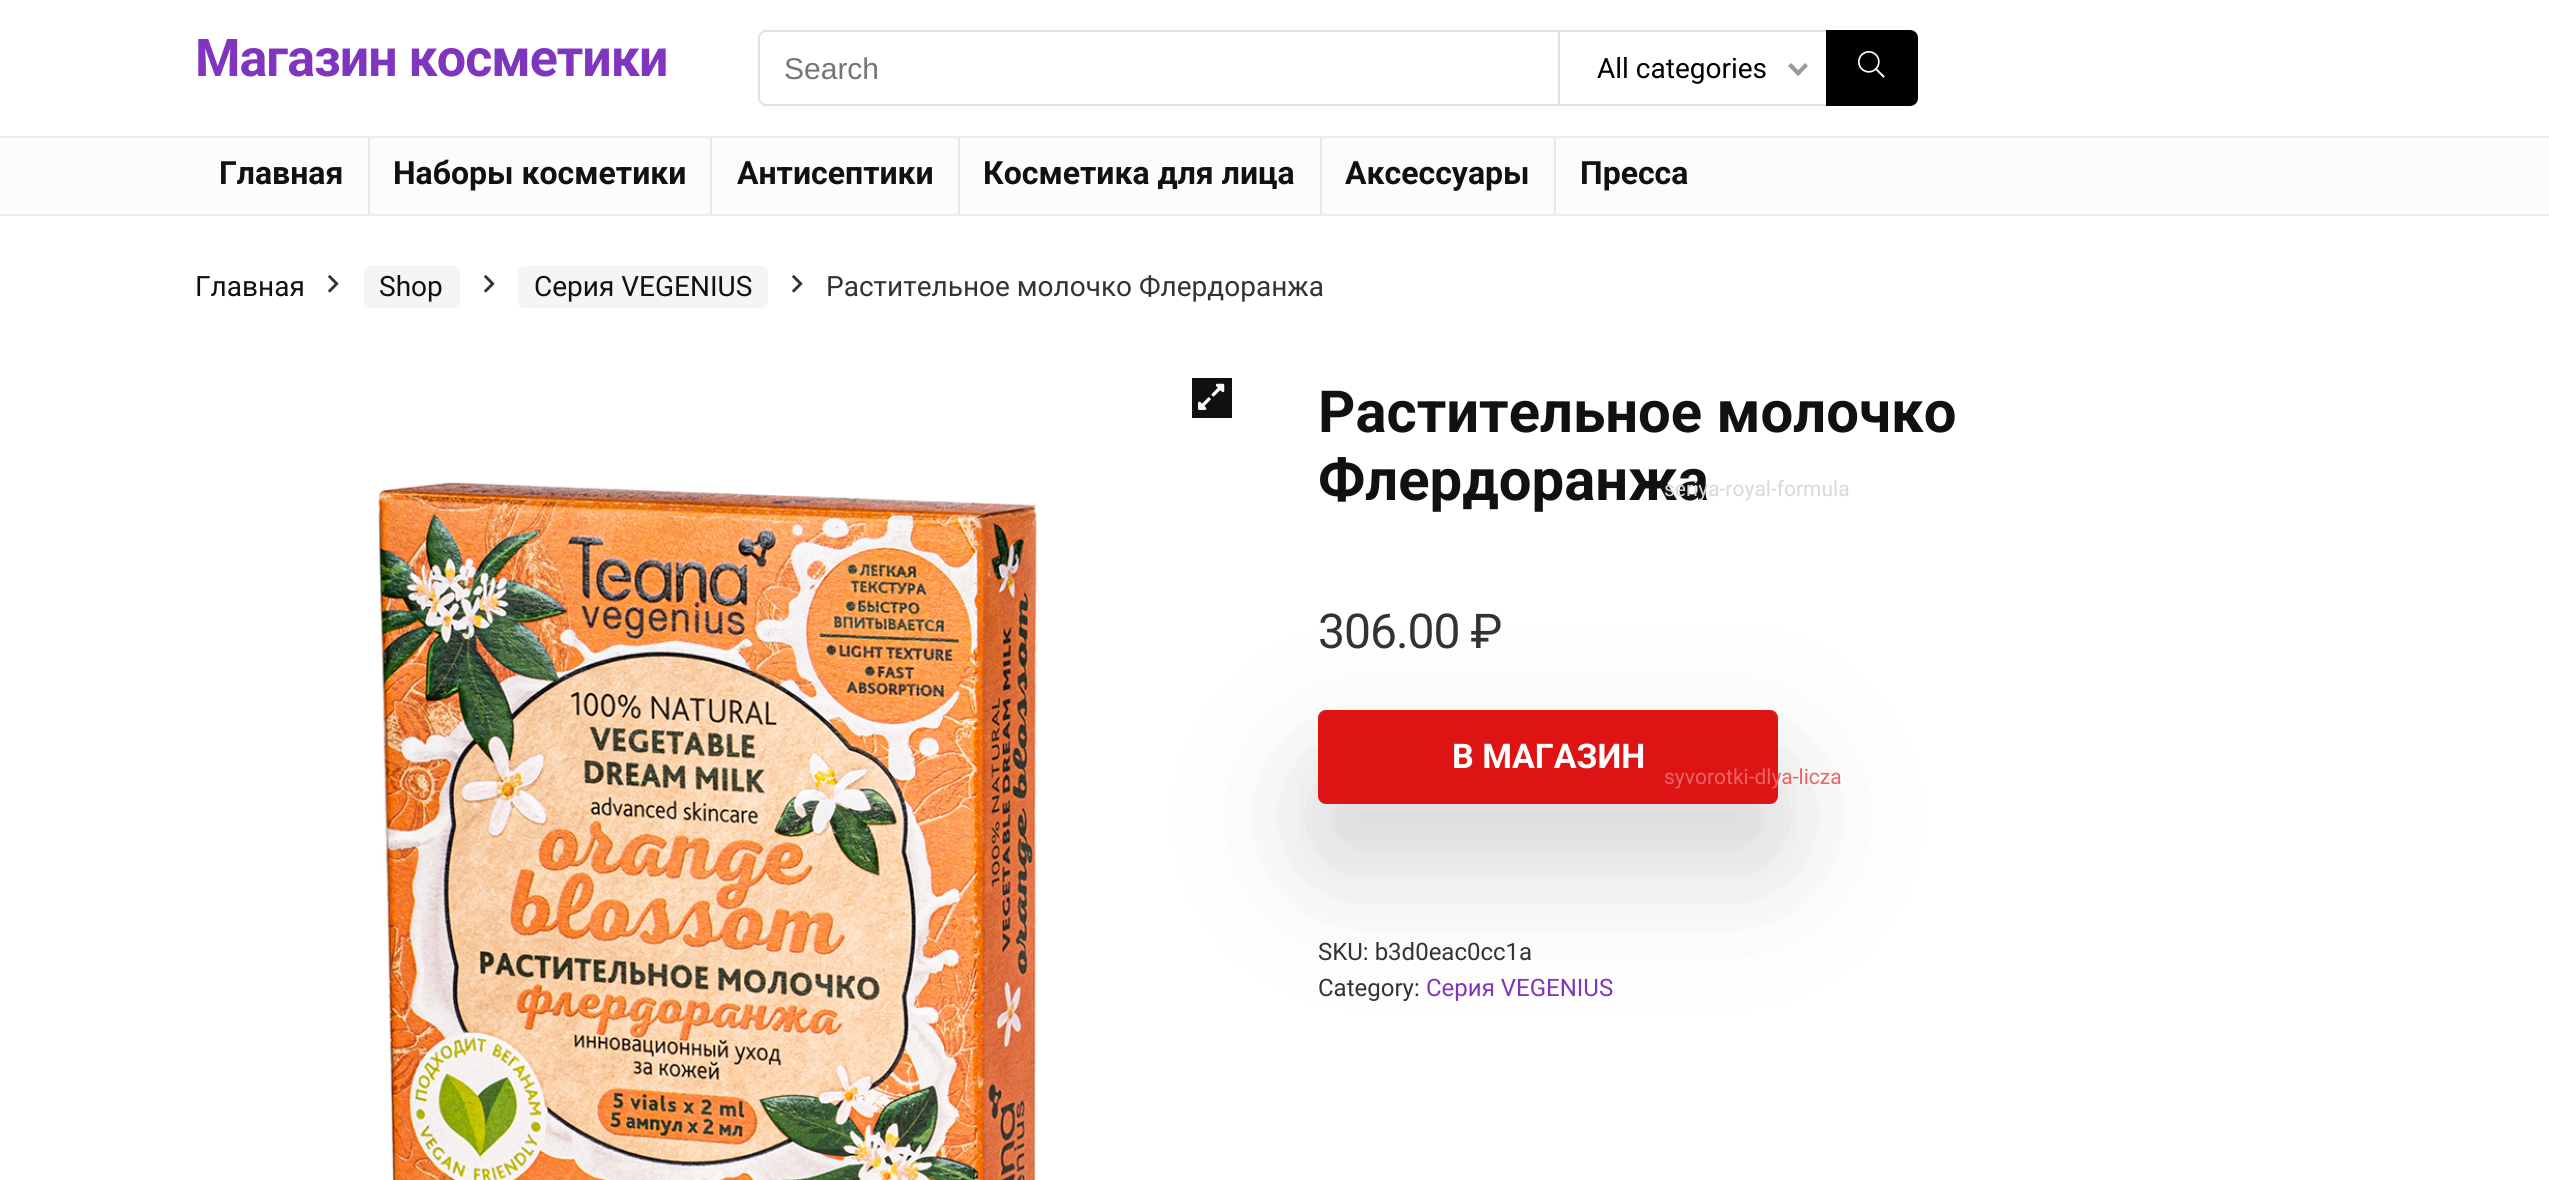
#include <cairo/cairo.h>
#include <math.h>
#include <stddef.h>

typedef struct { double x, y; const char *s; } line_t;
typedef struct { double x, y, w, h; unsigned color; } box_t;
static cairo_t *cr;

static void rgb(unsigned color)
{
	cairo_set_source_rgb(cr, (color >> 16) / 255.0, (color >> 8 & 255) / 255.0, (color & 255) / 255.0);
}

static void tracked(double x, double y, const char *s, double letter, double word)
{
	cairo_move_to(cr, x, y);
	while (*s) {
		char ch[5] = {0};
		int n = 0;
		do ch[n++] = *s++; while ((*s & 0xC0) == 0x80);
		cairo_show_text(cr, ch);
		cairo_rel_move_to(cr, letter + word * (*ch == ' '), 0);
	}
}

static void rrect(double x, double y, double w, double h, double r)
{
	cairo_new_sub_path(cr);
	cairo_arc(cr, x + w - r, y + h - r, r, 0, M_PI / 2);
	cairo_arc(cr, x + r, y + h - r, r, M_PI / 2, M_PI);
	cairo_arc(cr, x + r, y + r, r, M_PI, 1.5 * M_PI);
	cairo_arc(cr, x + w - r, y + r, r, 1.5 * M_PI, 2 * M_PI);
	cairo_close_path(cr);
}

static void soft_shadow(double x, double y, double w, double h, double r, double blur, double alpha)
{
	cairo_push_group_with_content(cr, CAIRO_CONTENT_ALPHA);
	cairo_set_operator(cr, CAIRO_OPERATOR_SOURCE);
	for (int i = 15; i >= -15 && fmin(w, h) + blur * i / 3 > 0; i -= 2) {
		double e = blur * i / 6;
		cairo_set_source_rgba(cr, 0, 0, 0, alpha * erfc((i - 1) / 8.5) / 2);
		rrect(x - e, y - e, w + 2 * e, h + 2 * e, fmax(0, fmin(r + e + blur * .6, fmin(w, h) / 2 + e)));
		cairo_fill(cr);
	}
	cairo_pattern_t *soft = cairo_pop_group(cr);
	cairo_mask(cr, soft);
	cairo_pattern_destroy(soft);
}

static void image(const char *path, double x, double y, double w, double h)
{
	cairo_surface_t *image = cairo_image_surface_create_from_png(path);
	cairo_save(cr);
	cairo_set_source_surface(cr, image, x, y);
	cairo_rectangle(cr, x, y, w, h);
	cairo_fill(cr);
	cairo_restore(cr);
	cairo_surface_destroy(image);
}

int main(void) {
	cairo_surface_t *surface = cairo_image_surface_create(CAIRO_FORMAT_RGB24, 2549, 1180);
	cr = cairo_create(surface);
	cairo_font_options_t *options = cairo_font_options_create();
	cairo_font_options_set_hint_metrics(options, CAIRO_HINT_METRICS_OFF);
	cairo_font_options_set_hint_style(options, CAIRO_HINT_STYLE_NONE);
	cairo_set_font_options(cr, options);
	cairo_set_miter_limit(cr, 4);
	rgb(0xffffff);
	cairo_paint(cr);
	rgb(0xe1e1e1);
	cairo_set_fill_rule(cr, CAIRO_FILL_RULE_EVEN_ODD);
	cairo_new_path(cr);
	cairo_move_to(cr, 766, 30);
	cairo_line_to(cr, 1558, 30);
	cairo_line_to(cr, 1558, 106);
	cairo_line_to(cr, 766, 106);
	cairo_curve_to(cr, 762, 106, 758, 102, 758, 98);
	cairo_line_to(cr, 758, 38);
	cairo_curve_to(cr, 758, 34, 762, 30, 766, 30);
	cairo_close_path(cr);
	cairo_move_to(cr, 766, 32);
	cairo_line_to(cr, 1558, 32);
	cairo_line_to(cr, 1558, 104);
	cairo_line_to(cr, 766, 104);
	cairo_curve_to(cr, 763, 104, 760, 101, 760, 98);
	cairo_line_to(cr, 760, 38);
	cairo_curve_to(cr, 760, 35, 763, 32, 766, 32);
	cairo_close_path(cr);
	cairo_fill(cr);
	{
		static const box_t items[] = {
			{1558, 30, 268, 2, 0xe1e1e1},
			{1558, 104, 268, 2, 0xe1e1e1},
			{1558, 30, 2, 76, 0xe1e1e1},
		};
		for (size_t i = 0; i < sizeof items / sizeof *items; i++) {
			rgb(items[i].color);
			cairo_rectangle(cr, items[i].x, items[i].y, items[i].w, items[i].h);
			cairo_fill(cr);
		}
	}
	rgb(0x999999);
	cairo_set_fill_rule(cr, CAIRO_FILL_RULE_WINDING);
	cairo_new_path(cr);
	cairo_move_to(cr, 1805, 63);
	cairo_line_to(cr, 1808, 66);
	cairo_line_to(cr, 1798, 76);
	cairo_line_to(cr, 1795.5, 73);
	cairo_close_path(cr);
	cairo_fill(cr);
	cairo_new_path(cr);
	cairo_move_to(cr, 1791, 63);
	cairo_line_to(cr, 1801, 73);
	cairo_line_to(cr, 1798, 76);
	cairo_line_to(cr, 1788, 66);
	cairo_close_path(cr);
	cairo_fill(cr);
	rgb(0x000000);
	cairo_new_path(cr);
	cairo_move_to(cr, 1826, 30);
	cairo_line_to(cr, 1910, 30);
	cairo_curve_to(cr, 1914.5, 30, 1918, 33.5, 1918, 38);
	cairo_line_to(cr, 1918, 98);
	cairo_curve_to(cr, 1918, 102.5, 1914.5, 106, 1910, 106);
	cairo_line_to(cr, 1826, 106);
	cairo_close_path(cr);
	cairo_fill(cr);
	image("img/1.png", 1858, 51, 27, 27);
	{
		static const box_t items[] = {
			{0, 138, 2549, 76, 0xfcfcfc},
			{0, 136, 2549, 2, 0xeeeeee},
			{0, 214, 2549, 2, 0xeeeeee},
			{368, 138, 2, 76, 0xe8e8e8},
			{710, 138, 2, 76, 0xe8e8e8},
			{958, 138, 2, 76, 0xe8e8e8},
			{1320, 138, 2, 76, 0xe8e8e8},
			{1554, 138, 2, 76, 0xe8e8e8},
		};
		for (size_t i = 0; i < sizeof items / sizeof *items; i++) {
			rgb(items[i].color);
			cairo_rectangle(cr, items[i].x, items[i].y, items[i].w, items[i].h);
			cairo_fill(cr);
		}
	}
	image("img/2.png", 328, 275, 11, 18);
	rgb(0xf5f5f5);
	rrect(364, 266, 96, 42, 6);
	cairo_fill(cr);
	image("img/2.png", 484, 275, 11, 18);
	rrect(518, 266, 250, 42, 6);
	cairo_fill(cr);
	image("img/2.png", 792, 275, 11, 18);
	rgb(0x111111);
	cairo_rectangle(cr, 1192, 378, 40, 40);
	cairo_fill(cr);
	image("img/3.png", 1198, 383, 27, 27);
	image("img/4.png", 378, 482, 659, 698);
	rgb(0x000000);
	soft_shadow(1318, 770, 460, 94, 8, 80, 0.12);
	soft_shadow(1318, 766, 460, 94, 8, 38, 0.06);
	rgb(0xde1414);
	rrect(1318, 710, 460, 94, 8);
	cairo_fill(cr);
	cairo_select_font_face(cr, "Roboto", CAIRO_FONT_SLANT_NORMAL, CAIRO_FONT_WEIGHT_BOLD);
	cairo_set_font_size(cr, 52);
	rgb(0x8035be);
	tracked(195, 76, "Магазин косметики", -1, 0);
	cairo_select_font_face(cr, "Liberation Sans", CAIRO_FONT_SLANT_NORMAL, CAIRO_FONT_WEIGHT_NORMAL);
	cairo_set_font_size(cr, 30);
	rgb(0x757575);
	cairo_move_to(cr, 784, 79);
	cairo_show_text(cr, "Search");
	cairo_select_font_face(cr, "Roboto", CAIRO_FONT_SLANT_NORMAL, CAIRO_FONT_WEIGHT_NORMAL);
	cairo_set_font_size(cr, 28);
	rgb(0x000000);
	cairo_move_to(cr, 1597, 78);
	cairo_show_text(cr, "All categories");
	cairo_set_font_size(cr, 21);
	rgb(0xe76565);
	cairo_move_to(cr, 1664, 784);
	cairo_show_text(cr, "syvorotki-dlya-licza");
	cairo_select_font_face(cr, "Roboto", CAIRO_FONT_SLANT_NORMAL, CAIRO_FONT_WEIGHT_BOLD);
	cairo_set_font_size(cr, 32);
	rgb(0x111111);
	{
		static const line_t items[] = {
			{219, 184, "Главная"},
			{393, 184, "Наборы косметики"},
			{737, 184, "Антисептики"},
			{983, 184, "Косметика для лица"},
			{1345, 184, "Аксессуары"},
			{1580, 184, "Пресса"},
		};
		for (size_t i = 0; i < sizeof items / sizeof *items; i++) {
			cairo_move_to(cr, items[i].x, items[i].y);
			cairo_show_text(cr, items[i].s);
		}
	}
	cairo_select_font_face(cr, "Roboto", CAIRO_FONT_SLANT_NORMAL, CAIRO_FONT_WEIGHT_NORMAL);
	cairo_set_font_size(cr, 28);
	{
		static const line_t items[] = {
			{195, 296, "Главная"},
			{379, 296, "Shop"},
			{534, 296, "Серия VEGENIUS"},
		};
		for (size_t i = 0; i < sizeof items / sizeof *items; i++) {
			cairo_move_to(cr, items[i].x, items[i].y);
			cairo_show_text(cr, items[i].s);
		}
	}
	rgb(0x333333);
	cairo_move_to(cr, 826, 296);
	cairo_show_text(cr, "Растительное молочко Флердоранжа");
	cairo_select_font_face(cr, "Roboto", CAIRO_FONT_SLANT_NORMAL, CAIRO_FONT_WEIGHT_BOLD);
	cairo_set_font_size(cr, 58);
	rgb(0x111111);
	cairo_move_to(cr, 1318, 432);
	cairo_show_text(cr, "Растительное молочко");
	cairo_move_to(cr, 1318, 500);
	cairo_show_text(cr, "Флердоранжа");
	cairo_select_font_face(cr, "Roboto", CAIRO_FONT_SLANT_NORMAL, CAIRO_FONT_WEIGHT_NORMAL);
	cairo_set_font_size(cr, 21);
	rgb(0xd9d9d9);
	cairo_move_to(cr, 1664, 496);
	cairo_show_text(cr, "seriya-royal-formula");
	cairo_set_font_size(cr, 48);
	rgb(0x333333);
	tracked(1318, 648, "306.00 ₽", -1, 0);
	cairo_select_font_face(cr, "Roboto", CAIRO_FONT_SLANT_NORMAL, CAIRO_FONT_WEIGHT_BOLD);
	cairo_set_font_size(cr, 34);
	rgb(0xffffff);
	cairo_move_to(cr, 1452, 768);
	cairo_show_text(cr, "В МАГАЗИН");
	cairo_select_font_face(cr, "Roboto", CAIRO_FONT_SLANT_NORMAL, CAIRO_FONT_WEIGHT_NORMAL);
	cairo_set_font_size(cr, 24);
	rgb(0x333333);
	cairo_move_to(cr, 1318, 960);
	cairo_show_text(cr, "SKU: b3d0eac0cc1a");
	cairo_move_to(cr, 1318, 996);
	cairo_show_text(cr, "Category:");
	rgb(0x8035be);
	cairo_move_to(cr, 1426, 996);
	cairo_show_text(cr, "Серия VEGENIUS");
	cairo_surface_write_to_png(surface, "page.png");
	cairo_font_options_destroy(options);
	cairo_destroy(cr);
	cairo_surface_destroy(surface);
	return 0;
}
